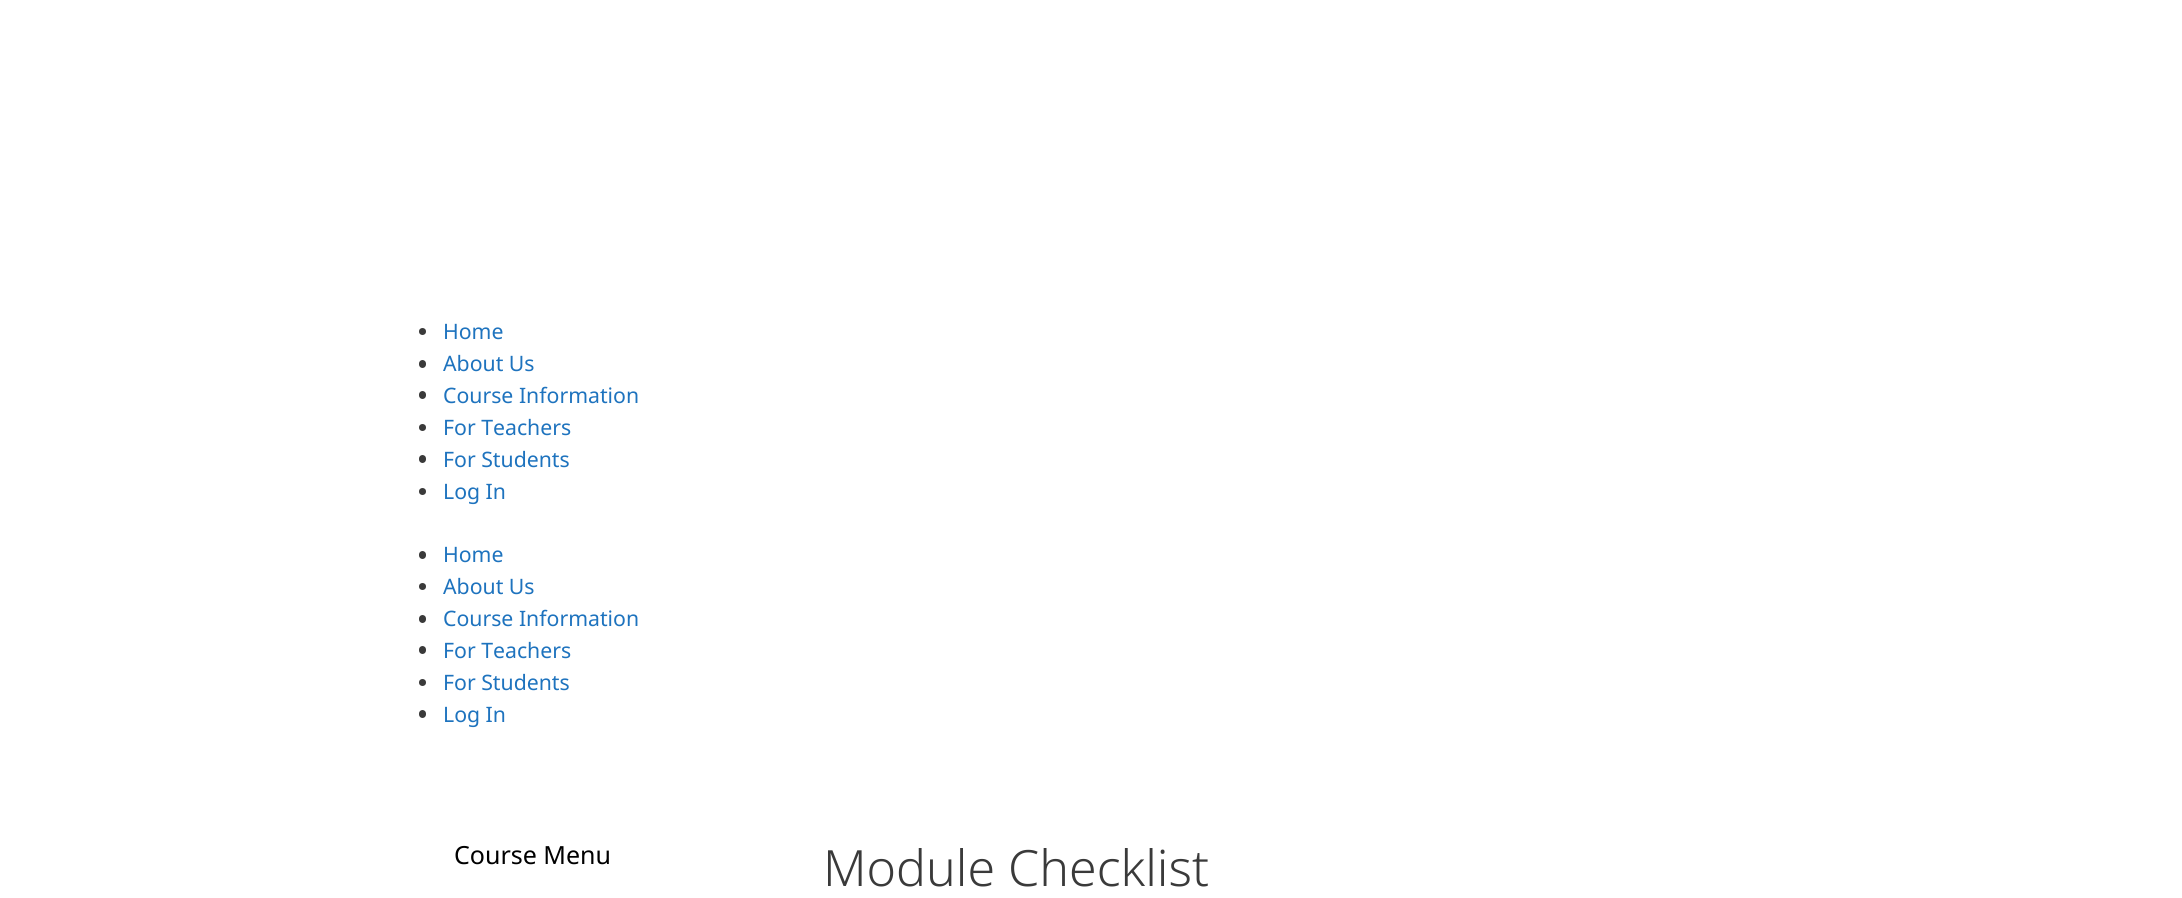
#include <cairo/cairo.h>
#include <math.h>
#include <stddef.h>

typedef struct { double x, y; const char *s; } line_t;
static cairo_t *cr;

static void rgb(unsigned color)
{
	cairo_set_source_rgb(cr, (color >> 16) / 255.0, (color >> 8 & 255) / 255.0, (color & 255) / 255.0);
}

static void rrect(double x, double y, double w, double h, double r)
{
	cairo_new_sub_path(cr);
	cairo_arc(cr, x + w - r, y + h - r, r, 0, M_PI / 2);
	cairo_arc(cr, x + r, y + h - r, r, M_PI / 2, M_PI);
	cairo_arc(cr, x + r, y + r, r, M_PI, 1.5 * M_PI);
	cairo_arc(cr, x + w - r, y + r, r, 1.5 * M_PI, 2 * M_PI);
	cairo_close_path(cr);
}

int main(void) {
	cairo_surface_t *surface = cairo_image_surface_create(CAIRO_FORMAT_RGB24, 2182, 898);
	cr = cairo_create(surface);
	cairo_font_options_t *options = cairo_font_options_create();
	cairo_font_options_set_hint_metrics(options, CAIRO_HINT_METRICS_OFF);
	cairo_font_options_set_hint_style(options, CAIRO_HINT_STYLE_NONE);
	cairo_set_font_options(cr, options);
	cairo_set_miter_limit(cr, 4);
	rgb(0xffffff);
	cairo_paint(cr);
	rgb(0x3a3a3a);
	cairo_arc(cr, 422.5, 331.5, 3.5, 0, 2 * M_PI);
	cairo_fill(cr);
	rrect(419, 360, 7, 8, 3.5);
	cairo_fill(cr);
	rrect(419, 391, 7, 8, 3.5);
	cairo_fill(cr);
	cairo_arc(cr, 422.5, 427.5, 3.5, 0, 2 * M_PI);
	cairo_fill(cr);
	rrect(419, 455, 7, 8, 3.5);
	cairo_fill(cr);
	cairo_arc(cr, 422.5, 491.5, 3.5, 0, 2 * M_PI);
	cairo_fill(cr);
	rrect(419, 551, 7, 8, 3.5);
	cairo_fill(cr);
	cairo_arc(cr, 422.5, 586.5, 3.5, 0, 2 * M_PI);
	cairo_fill(cr);
	rrect(419, 615, 7, 8, 3.5);
	cairo_fill(cr);
	rrect(419, 646, 7, 8, 3.5);
	cairo_fill(cr);
	cairo_arc(cr, 422.5, 682.5, 3.5, 0, 2 * M_PI);
	cairo_fill(cr);
	rrect(419, 710, 7, 8, 3.5);
	cairo_fill(cr);
	cairo_select_font_face(cr, "Noto Sans", CAIRO_FONT_SLANT_NORMAL, CAIRO_FONT_WEIGHT_NORMAL);
	cairo_set_font_size(cr, 21.25);
	rgb(0x1e73be);
	{
		static const line_t items[] = {
			{443, 339, "Home"},
			{443, 371, "About Us"},
			{443, 403, "Course Information"},
			{443, 435, "For Teachers"},
			{443, 467, "For Students"},
			{443, 499, "Log In"},
			{443, 562, "Home"},
			{443, 594, "About Us"},
			{443, 626, "Course Information"},
			{443, 658, "For Teachers"},
			{443, 690, "For Students"},
			{443, 722, "Log In"},
		};
		for (size_t i = 0; i < sizeof items / sizeof *items; i++) {
			cairo_move_to(cr, items[i].x, items[i].y);
			cairo_show_text(cr, items[i].s);
		}
	}
	cairo_set_font_size(cr, 25);
	rgb(0x000000);
	cairo_move_to(cr, 454, 864);
	cairo_show_text(cr, "Course Menu");
	cairo_select_font_face(cr, "Noto Sans Light", CAIRO_FONT_SLANT_NORMAL, CAIRO_FONT_WEIGHT_NORMAL);
	cairo_set_font_size(cr, 50);
	rgb(0x3a3a3a);
	cairo_move_to(cr, 823, 886);
	cairo_show_text(cr, "Module Checklist");
	cairo_surface_write_to_png(surface, "page.png");
	cairo_font_options_destroy(options);
	cairo_destroy(cr);
	cairo_surface_destroy(surface);
	return 0;
}
